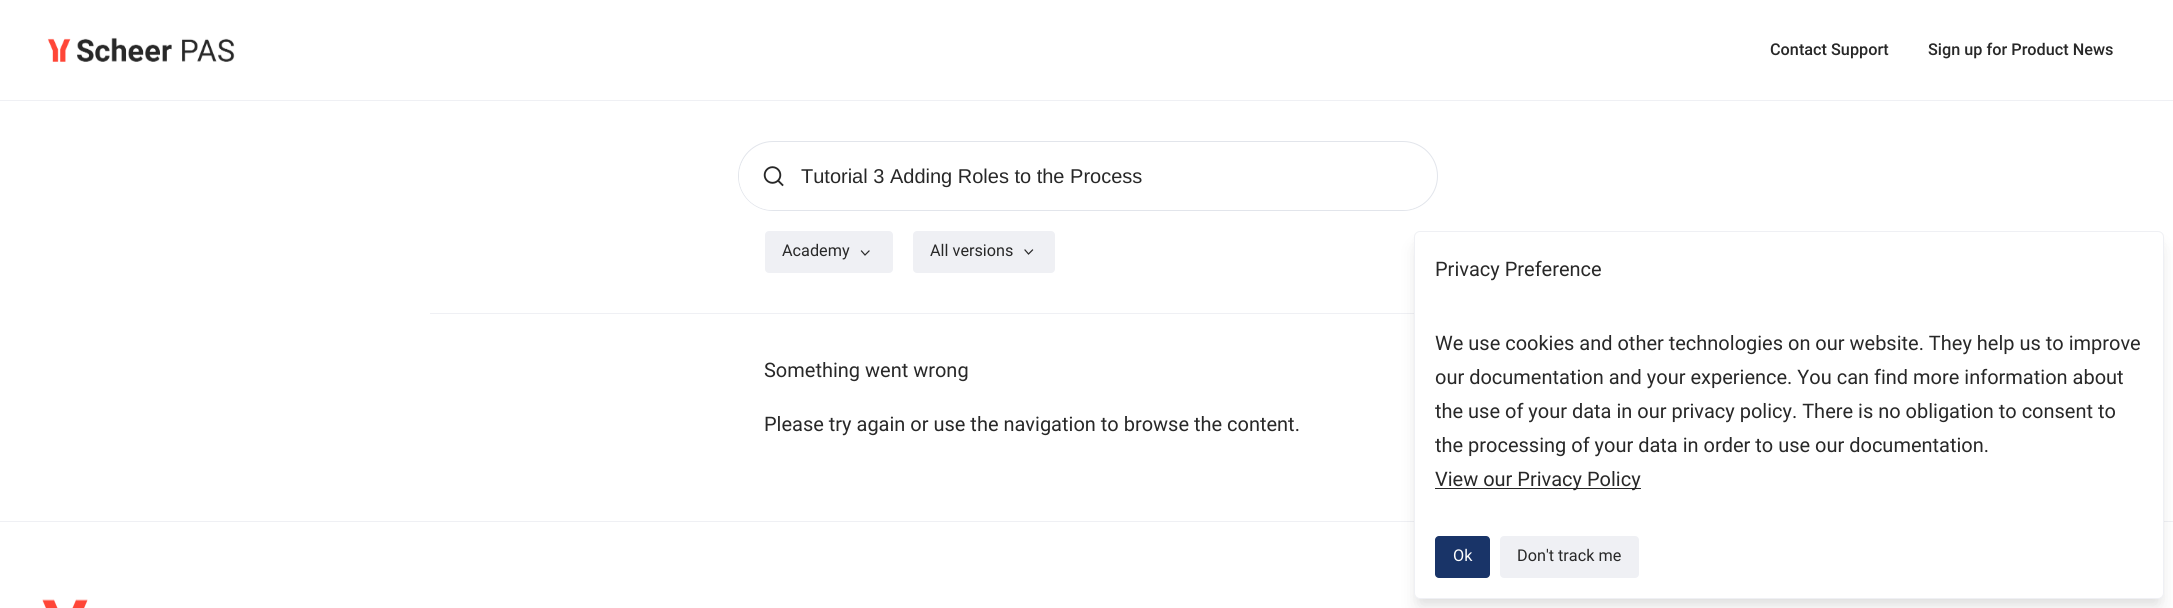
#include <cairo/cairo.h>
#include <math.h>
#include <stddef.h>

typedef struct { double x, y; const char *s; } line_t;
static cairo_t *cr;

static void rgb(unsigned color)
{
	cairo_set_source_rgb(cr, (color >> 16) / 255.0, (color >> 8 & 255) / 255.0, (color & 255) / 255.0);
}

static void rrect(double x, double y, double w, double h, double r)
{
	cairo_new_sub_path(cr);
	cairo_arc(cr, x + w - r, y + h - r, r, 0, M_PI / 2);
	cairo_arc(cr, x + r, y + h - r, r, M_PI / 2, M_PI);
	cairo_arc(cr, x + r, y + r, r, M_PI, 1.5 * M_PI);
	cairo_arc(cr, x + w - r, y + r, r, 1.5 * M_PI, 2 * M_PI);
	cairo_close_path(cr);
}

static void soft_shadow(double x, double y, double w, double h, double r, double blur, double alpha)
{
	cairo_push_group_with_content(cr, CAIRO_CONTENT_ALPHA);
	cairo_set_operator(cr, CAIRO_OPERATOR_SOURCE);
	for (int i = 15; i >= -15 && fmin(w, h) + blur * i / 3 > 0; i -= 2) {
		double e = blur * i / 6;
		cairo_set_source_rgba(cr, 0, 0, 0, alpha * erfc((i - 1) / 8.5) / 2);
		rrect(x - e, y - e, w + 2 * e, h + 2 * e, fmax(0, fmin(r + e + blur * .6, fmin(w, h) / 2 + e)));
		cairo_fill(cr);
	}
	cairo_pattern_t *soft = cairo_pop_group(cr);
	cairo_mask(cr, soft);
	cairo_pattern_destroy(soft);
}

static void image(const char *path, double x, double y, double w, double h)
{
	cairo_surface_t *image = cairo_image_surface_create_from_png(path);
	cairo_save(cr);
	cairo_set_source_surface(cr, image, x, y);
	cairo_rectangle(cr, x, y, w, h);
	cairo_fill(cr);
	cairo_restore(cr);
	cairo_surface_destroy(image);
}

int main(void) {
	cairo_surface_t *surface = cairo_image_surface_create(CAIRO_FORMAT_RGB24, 2173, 608);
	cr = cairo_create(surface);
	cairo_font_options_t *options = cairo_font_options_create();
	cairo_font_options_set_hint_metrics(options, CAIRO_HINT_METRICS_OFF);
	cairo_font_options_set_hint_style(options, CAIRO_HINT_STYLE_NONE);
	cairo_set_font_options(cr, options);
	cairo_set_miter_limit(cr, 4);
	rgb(0xffffff);
	cairo_paint(cr);
	rgb(0xeff0f4);
	cairo_rectangle(cr, 0, 100, 2173, 1);
	cairo_fill(cr);
	image("img/1.png", 47, 37, 188, 25);
	rrect(738.5, 141.5, 699, 69, 34.5);
	rgb(0xe2e5eb);
	cairo_set_line_width(cr, 1);
	cairo_stroke(cr);
	rgb(0xffffff);
	rrect(739, 143, 697, 67, 33.5);
	cairo_fill(cr);
	image("img/2.png", 763, 166, 21, 21);
	rgb(0xeff0f4);
	rrect(765, 231, 128, 42, 4);
	cairo_fill(cr);
	cairo_new_path(cr);
	cairo_move_to(cr, 869, 251);
	cairo_line_to(cr, 865, 255);
	cairo_line_to(cr, 861.5, 251);
	rgb(0x282828);
	cairo_set_line_width(cr, 1.2);
	cairo_set_line_cap(cr, CAIRO_LINE_CAP_SQUARE);
	cairo_stroke(cr);
	rgb(0xeff0f4);
	rrect(913, 231, 142, 42, 4);
	cairo_fill(cr);
	cairo_new_path(cr);
	cairo_move_to(cr, 1032.5, 250);
	cairo_line_to(cr, 1028.5, 254);
	cairo_line_to(cr, 1025, 250);
	rgb(0x282828);
	cairo_stroke(cr);
	rgb(0xeff0f4);
	cairo_rectangle(cr, 430, 313, 984, 1);
	cairo_fill(cr);
	cairo_rectangle(cr, 0, 521, 2173, 1);
	cairo_fill(cr);
	rgb(0x000000);
	soft_shadow(1416, 239, 745, 362, 4, 4, 0.05);
	soft_shadow(1418, 248, 742, 360, 2.5, 9.5, 0.1);
	rgb(0xffffff);
	rrect(1414.5, 231.5, 749, 367, 5.5);
	cairo_fill_preserve(cr);
	rgb(0xeff0f4);
	cairo_set_line_width(cr, 1);
	cairo_set_line_cap(cr, CAIRO_LINE_CAP_BUTT);
	cairo_stroke(cr);
	rgb(0x282828);
	cairo_rectangle(cr, 1435, 488, 206, 1);
	cairo_fill(cr);
	rgb(0x193468);
	rrect(1435, 536, 55, 42, 4);
	cairo_fill(cr);
	rgb(0xeff0f4);
	rrect(1500, 536, 139, 42, 4);
	cairo_fill(cr);
	image("img/3.png", 42, 599, 46, 9);
	cairo_select_font_face(cr, "Roboto Medium", CAIRO_FONT_SLANT_NORMAL, CAIRO_FONT_WEIGHT_NORMAL);
	cairo_set_font_size(cr, 16.25);
	rgb(0x282828);
	cairo_move_to(cr, 1770, 55);
	cairo_show_text(cr, "Contact Support");
	cairo_move_to(cr, 1928, 55);
	cairo_show_text(cr, "Sign up for Product News");
	cairo_select_font_face(cr, "Liberation Sans", CAIRO_FONT_SLANT_NORMAL, CAIRO_FONT_WEIGHT_NORMAL);
	cairo_set_font_size(cr, 20);
	cairo_move_to(cr, 801, 183);
	cairo_show_text(cr, "Tutorial 3 Adding Roles to the Process");
	cairo_select_font_face(cr, "Roboto", CAIRO_FONT_SLANT_NORMAL, CAIRO_FONT_WEIGHT_NORMAL);
	cairo_set_font_size(cr, 16.25);
	cairo_move_to(cr, 782, 256);
	cairo_show_text(cr, "Academy");
	cairo_move_to(cr, 930, 256);
	cairo_show_text(cr, "All versions");
	cairo_set_font_size(cr, 20);
	{
		static const line_t items[] = {
			{764, 377, "Something went wrong"},
			{764, 431, "Please try again or use the navigation to browse the content."},
			{1435, 276, "Privacy Preference"},
			{1435, 350, "We use cookies and other technologies on our website. They help us to improve"},
			{1435, 384, "our documentation and your experience. You can find more information about"},
			{1435, 418, "the use of your data in our privacy policy. There is no obligation to consent to"},
			{1435, 452, "the processing of your data in order to use our documentation."},
			{1435, 486, "View our Privacy Policy"},
		};
		for (size_t i = 0; i < sizeof items / sizeof *items; i++) {
			cairo_move_to(cr, items[i].x, items[i].y);
			cairo_show_text(cr, items[i].s);
		}
	}
	cairo_set_font_size(cr, 16.25);
	rgb(0xffffff);
	cairo_move_to(cr, 1453, 561);
	cairo_show_text(cr, "Ok");
	rgb(0x282828);
	cairo_move_to(cr, 1517, 561);
	cairo_show_text(cr, "Don't track me");
	cairo_surface_write_to_png(surface, "page.png");
	cairo_font_options_destroy(options);
	cairo_destroy(cr);
	cairo_surface_destroy(surface);
	return 0;
}
